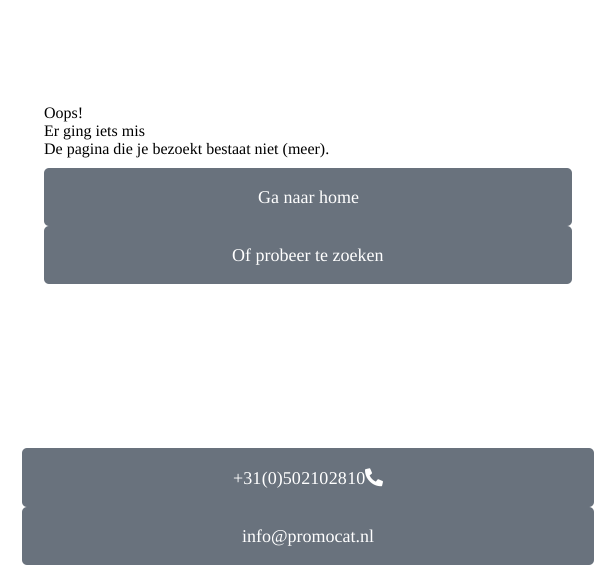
#include <cairo/cairo.h>
#include <math.h>
#include <stddef.h>

typedef struct { double x, y; const char *s; } line_t;
static cairo_t *cr;

static void rgb(unsigned color)
{
	cairo_set_source_rgb(cr, (color >> 16) / 255.0, (color >> 8 & 255) / 255.0, (color & 255) / 255.0);
}

static void tracked(double x, double y, const char *s, double letter, double word)
{
	cairo_move_to(cr, x, y);
	while (*s) {
		char ch[5] = {0};
		int n = 0;
		do ch[n++] = *s++; while ((*s & 0xC0) == 0x80);
		cairo_show_text(cr, ch);
		cairo_rel_move_to(cr, letter + word * (*ch == ' '), 0);
	}
}

static void rrect(double x, double y, double w, double h, double r)
{
	cairo_new_sub_path(cr);
	cairo_arc(cr, x + w - r, y + h - r, r, 0, M_PI / 2);
	cairo_arc(cr, x + r, y + h - r, r, M_PI / 2, M_PI);
	cairo_arc(cr, x + r, y + r, r, M_PI, 1.5 * M_PI);
	cairo_arc(cr, x + w - r, y + r, r, 1.5 * M_PI, 2 * M_PI);
	cairo_close_path(cr);
}

static void image(const char *path, double x, double y, double w, double h)
{
	cairo_surface_t *image = cairo_image_surface_create_from_png(path);
	cairo_save(cr);
	cairo_set_source_surface(cr, image, x, y);
	cairo_rectangle(cr, x, y, w, h);
	cairo_fill(cr);
	cairo_restore(cr);
	cairo_surface_destroy(image);
}

int main(void) {
	cairo_surface_t *surface = cairo_image_surface_create(CAIRO_FORMAT_RGB24, 616, 577);
	cr = cairo_create(surface);
	cairo_font_options_t *options = cairo_font_options_create();
	cairo_font_options_set_hint_metrics(options, CAIRO_HINT_METRICS_OFF);
	cairo_font_options_set_hint_style(options, CAIRO_HINT_STYLE_NONE);
	cairo_set_font_options(cr, options);
	cairo_set_miter_limit(cr, 4);
	rgb(0xffffff);
	cairo_paint(cr);
	rgb(0x69727d);
	rrect(44, 168, 528, 58, 5);
	cairo_fill(cr);
	rrect(44, 226, 528, 58, 5);
	cairo_fill(cr);
	rrect(22, 448, 572, 59, 5);
	cairo_fill(cr);
	image("img/1.png", 365, 468, 18, 19);
	rrect(22, 507, 572, 58, 5);
	cairo_fill(cr);
	cairo_select_font_face(cr, "Liberation Serif", CAIRO_FONT_SLANT_NORMAL, CAIRO_FONT_WEIGHT_NORMAL);
	cairo_set_font_size(cr, 16);
	rgb(0x000000);
	{
		static const line_t items[] = {
			{44, 118, "Oops!"},
			{44, 136, "Er ging iets mis"},
			{44, 154, "De pagina die je bezoekt bestaat niet (meer)."},
		};
		for (size_t i = 0; i < sizeof items / sizeof *items; i++) {
			cairo_move_to(cr, items[i].x, items[i].y);
			cairo_show_text(cr, items[i].s);
		}
	}
	cairo_set_font_size(cr, 18);
	rgb(0xffffff);
	cairo_move_to(cr, 258, 203);
	cairo_show_text(cr, "Ga naar home");
	cairo_move_to(cr, 232, 261);
	cairo_show_text(cr, "Of probeer te zoeken");
	tracked(233, 484, "+31 (0)50 210 28 10", 0, -4);
	cairo_move_to(cr, 242, 542);
	cairo_show_text(cr, "info@promocat.nl");
	cairo_surface_write_to_png(surface, "page.png");
	cairo_font_options_destroy(options);
	cairo_destroy(cr);
	cairo_surface_destroy(surface);
	return 0;
}
